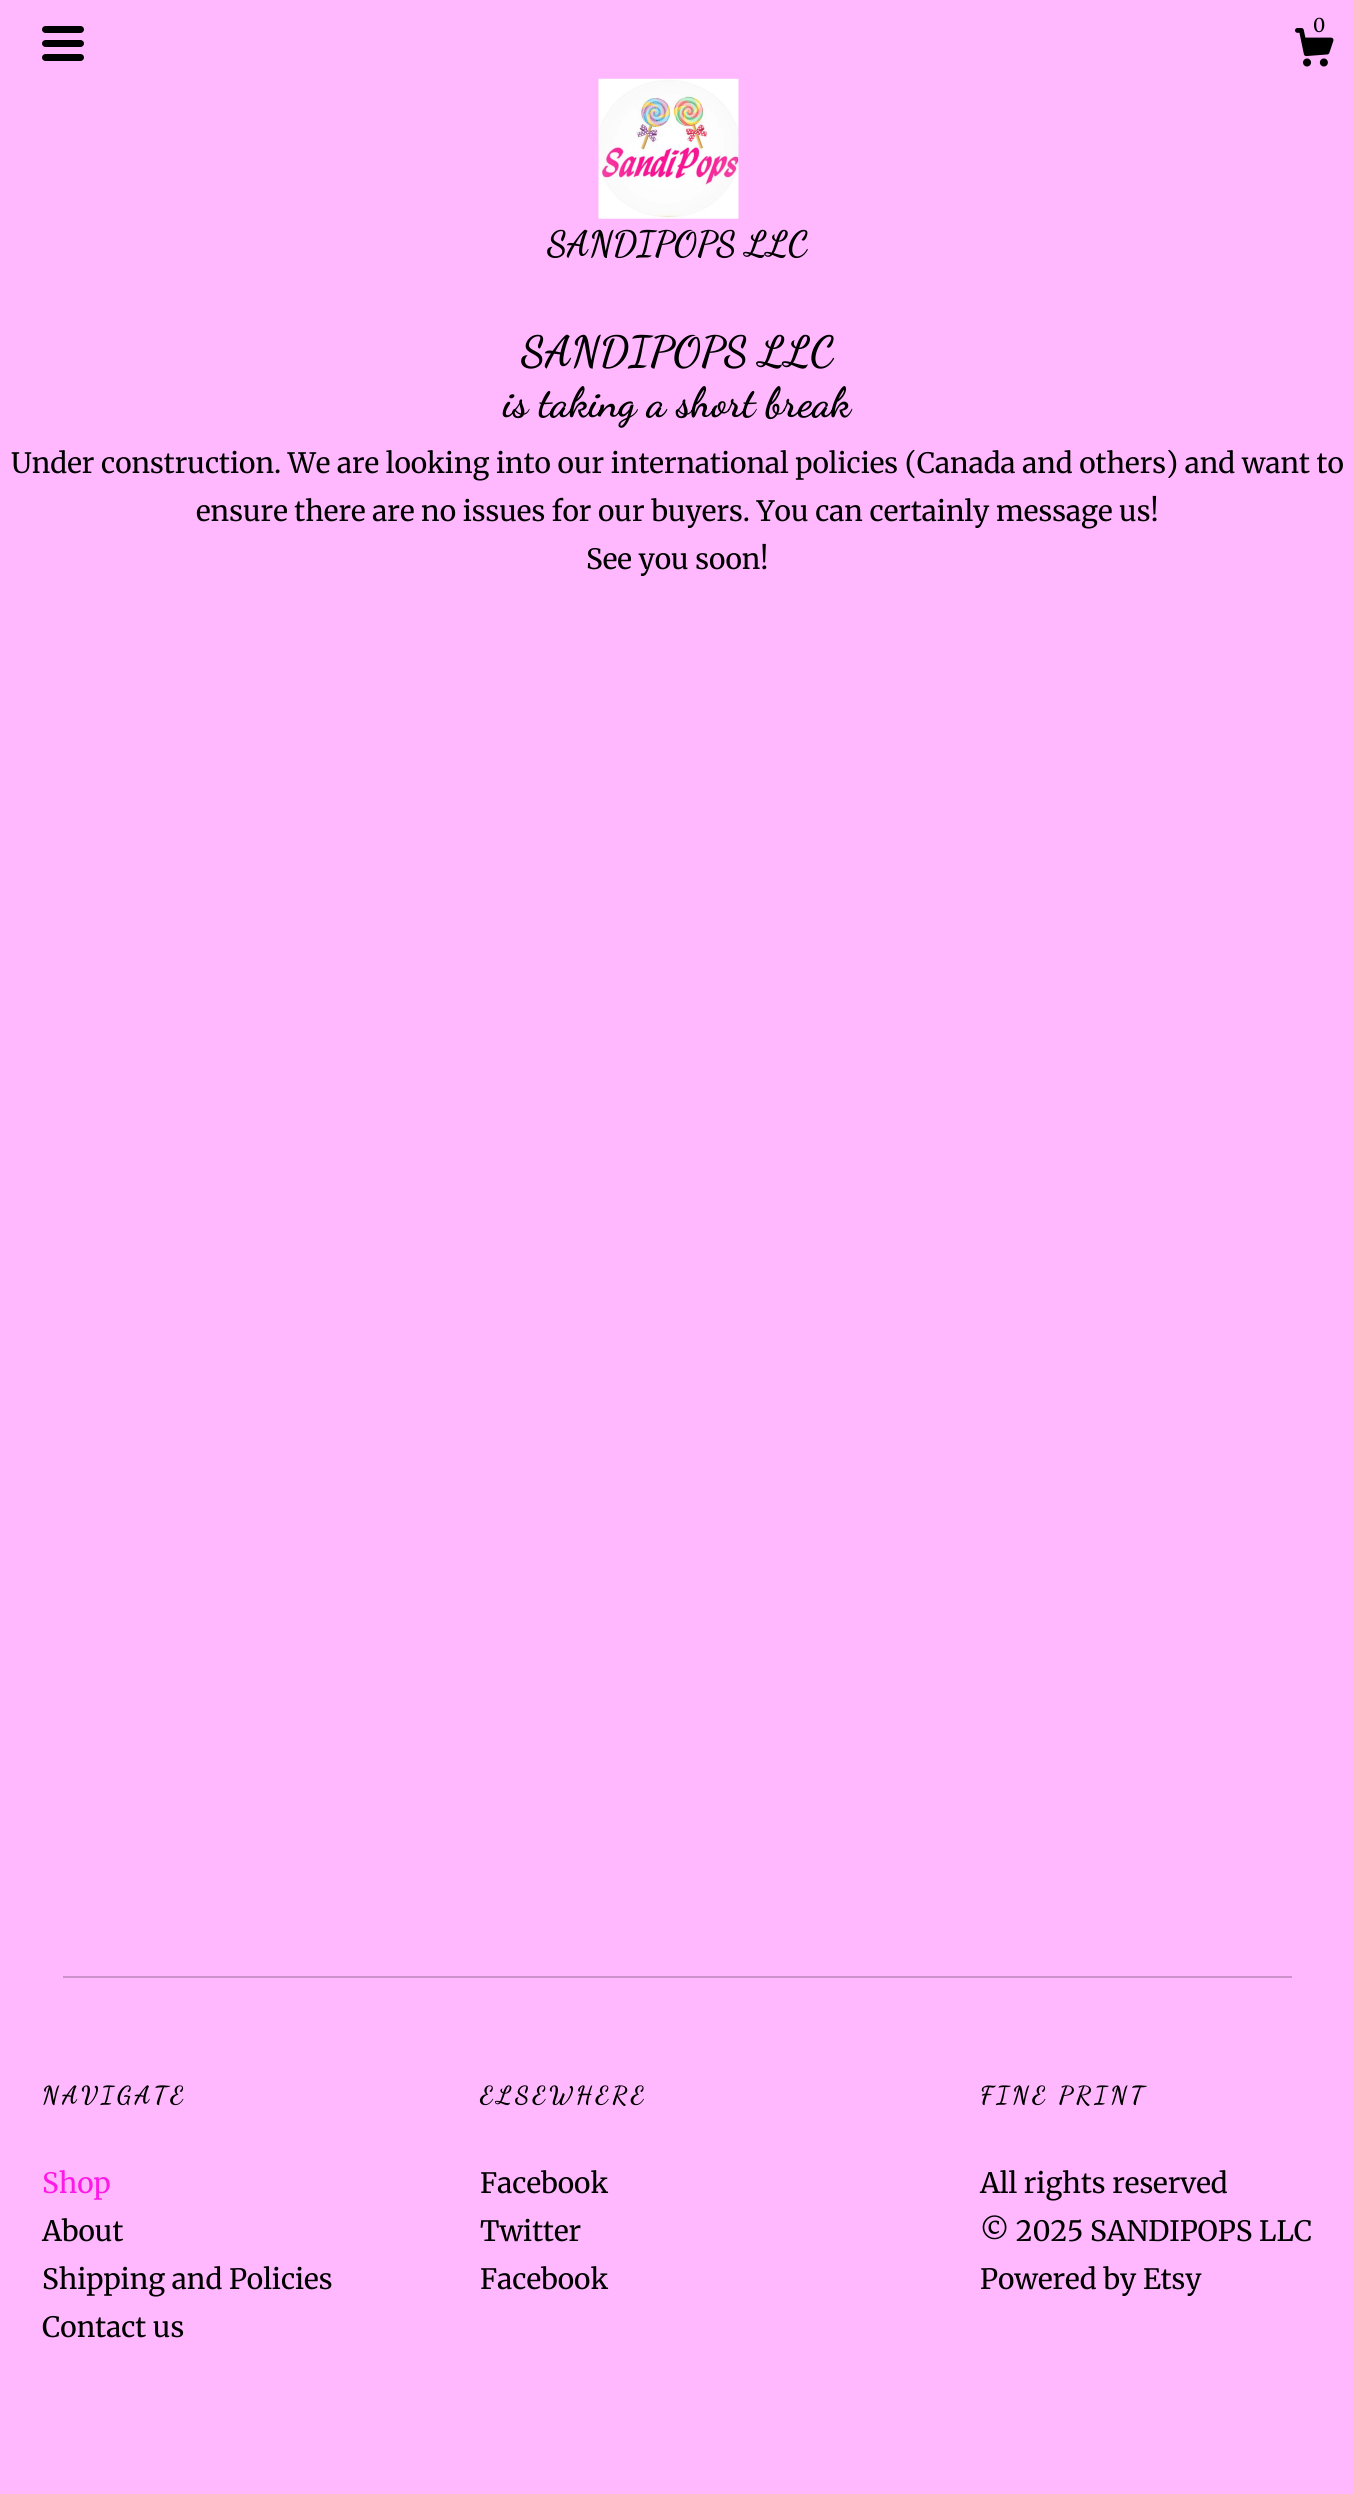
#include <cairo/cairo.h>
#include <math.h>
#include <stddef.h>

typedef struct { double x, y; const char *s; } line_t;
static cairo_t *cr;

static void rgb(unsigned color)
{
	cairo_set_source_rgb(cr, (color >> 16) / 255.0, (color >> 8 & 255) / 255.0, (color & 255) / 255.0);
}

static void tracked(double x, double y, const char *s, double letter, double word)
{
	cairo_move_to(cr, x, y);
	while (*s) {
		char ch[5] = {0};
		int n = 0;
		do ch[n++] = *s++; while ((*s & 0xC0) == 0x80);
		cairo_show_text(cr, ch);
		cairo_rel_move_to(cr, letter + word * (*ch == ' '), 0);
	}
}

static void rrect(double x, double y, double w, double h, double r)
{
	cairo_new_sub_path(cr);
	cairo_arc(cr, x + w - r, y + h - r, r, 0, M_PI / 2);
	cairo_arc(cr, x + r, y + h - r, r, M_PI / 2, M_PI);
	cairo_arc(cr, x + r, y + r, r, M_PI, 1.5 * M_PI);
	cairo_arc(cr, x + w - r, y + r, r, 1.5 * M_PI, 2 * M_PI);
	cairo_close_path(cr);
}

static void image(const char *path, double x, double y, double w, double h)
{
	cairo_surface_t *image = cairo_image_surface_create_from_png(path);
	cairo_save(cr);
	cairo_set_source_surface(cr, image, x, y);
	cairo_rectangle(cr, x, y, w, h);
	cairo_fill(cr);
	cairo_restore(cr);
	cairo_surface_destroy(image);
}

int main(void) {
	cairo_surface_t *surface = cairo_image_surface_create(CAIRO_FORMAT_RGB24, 1354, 2494);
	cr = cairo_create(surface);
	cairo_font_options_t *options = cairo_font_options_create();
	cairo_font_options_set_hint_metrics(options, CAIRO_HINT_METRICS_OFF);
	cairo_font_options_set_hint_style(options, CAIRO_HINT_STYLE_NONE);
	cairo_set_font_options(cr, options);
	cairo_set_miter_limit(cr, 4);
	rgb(0xffb7fe);
	cairo_paint(cr);
	rgb(0x000000);
	rrect(42, 26, 42, 7, 3.5);
	cairo_fill(cr);
	rrect(42, 40, 42, 7, 3.5);
	cairo_fill(cr);
	rrect(42, 54, 42, 7, 3.5);
	cairo_fill(cr);
	image("img/1.png", 1295, 28, 39, 39);
	image("img/2.png", 598, 78, 141, 141);
	rgb(0xcc92cb);
	cairo_rectangle(cr, 63, 1976, 1229, 2);
	cairo_fill(cr);
	cairo_select_font_face(cr, "Merriweather", CAIRO_FONT_SLANT_NORMAL, CAIRO_FONT_WEIGHT_NORMAL);
	cairo_set_font_size(cr, 19);
	rgb(0x000000);
	cairo_move_to(cr, 1313, 32);
	cairo_show_text(cr, "0");
	cairo_select_font_face(cr, "Dancing Script", CAIRO_FONT_SLANT_NORMAL, CAIRO_FONT_WEIGHT_BOLD);
	cairo_set_font_size(cr, 35);
	cairo_move_to(cr, 547, 255);
	cairo_show_text(cr, "SANDIPOPS LLC");
	cairo_set_font_size(cr, 42);
	cairo_move_to(cr, 521, 365);
	cairo_show_text(cr, "SANDIPOPS LLC");
	cairo_move_to(cr, 503, 416);
	cairo_show_text(cr, "is taking a short break");
	cairo_select_font_face(cr, "Merriweather", CAIRO_FONT_SLANT_NORMAL, CAIRO_FONT_WEIGHT_NORMAL);
	cairo_set_font_size(cr, 28);
	{
		static const line_t items[] = {
			{11, 473, "Under construction. We are looking into our international policies (Canada and others) and want to"},
			{196, 521, "ensure there are no issues for our buyers. You can certainly message us!"},
			{586, 569, "See you soon!"},
		};
		for (size_t i = 0; i < sizeof items / sizeof *items; i++) {
			cairo_move_to(cr, items[i].x, items[i].y);
			cairo_show_text(cr, items[i].s);
		}
	}
	cairo_select_font_face(cr, "Dancing Script", CAIRO_FONT_SLANT_NORMAL, CAIRO_FONT_WEIGHT_BOLD);
	cairo_set_font_size(cr, 24.5);
	tracked(42, 2103, "NAVIGATE", 3.5, 0);
	cairo_select_font_face(cr, "Merriweather", CAIRO_FONT_SLANT_NORMAL, CAIRO_FONT_WEIGHT_NORMAL);
	cairo_set_font_size(cr, 28);
	rgb(0xff19e7);
	cairo_move_to(cr, 42, 2193);
	cairo_show_text(cr, "Shop");
	rgb(0x000000);
	{
		static const line_t items[] = {
			{42, 2241, "About"},
			{42, 2289, "Shipping and Policies"},
			{42, 2337, "Contact us"},
		};
		for (size_t i = 0; i < sizeof items / sizeof *items; i++) {
			cairo_move_to(cr, items[i].x, items[i].y);
			cairo_show_text(cr, items[i].s);
		}
	}
	cairo_select_font_face(cr, "Dancing Script", CAIRO_FONT_SLANT_NORMAL, CAIRO_FONT_WEIGHT_BOLD);
	cairo_set_font_size(cr, 24.5);
	tracked(480, 2103, "ELSEWHERE", 3.5, 0);
	cairo_select_font_face(cr, "Merriweather", CAIRO_FONT_SLANT_NORMAL, CAIRO_FONT_WEIGHT_NORMAL);
	cairo_set_font_size(cr, 28);
	{
		static const line_t items[] = {
			{480, 2193, "Facebook"},
			{480, 2241, "Twitter"},
			{480, 2289, "Facebook"},
		};
		for (size_t i = 0; i < sizeof items / sizeof *items; i++) {
			cairo_move_to(cr, items[i].x, items[i].y);
			cairo_show_text(cr, items[i].s);
		}
	}
	cairo_select_font_face(cr, "Dancing Script", CAIRO_FONT_SLANT_NORMAL, CAIRO_FONT_WEIGHT_BOLD);
	cairo_set_font_size(cr, 24.5);
	tracked(980, 2103, "FINE PRINT", 3.5, 0);
	cairo_select_font_face(cr, "Merriweather", CAIRO_FONT_SLANT_NORMAL, CAIRO_FONT_WEIGHT_NORMAL);
	cairo_set_font_size(cr, 28);
	{
		static const line_t items[] = {
			{980, 2193, "All rights reserved"},
			{980, 2241, "© 2025 SANDIPOPS LLC"},
			{980, 2289, "Powered by Etsy"},
		};
		for (size_t i = 0; i < sizeof items / sizeof *items; i++) {
			cairo_move_to(cr, items[i].x, items[i].y);
			cairo_show_text(cr, items[i].s);
		}
	}
	cairo_surface_write_to_png(surface, "page.png");
	cairo_font_options_destroy(options);
	cairo_destroy(cr);
	cairo_surface_destroy(surface);
	return 0;
}
